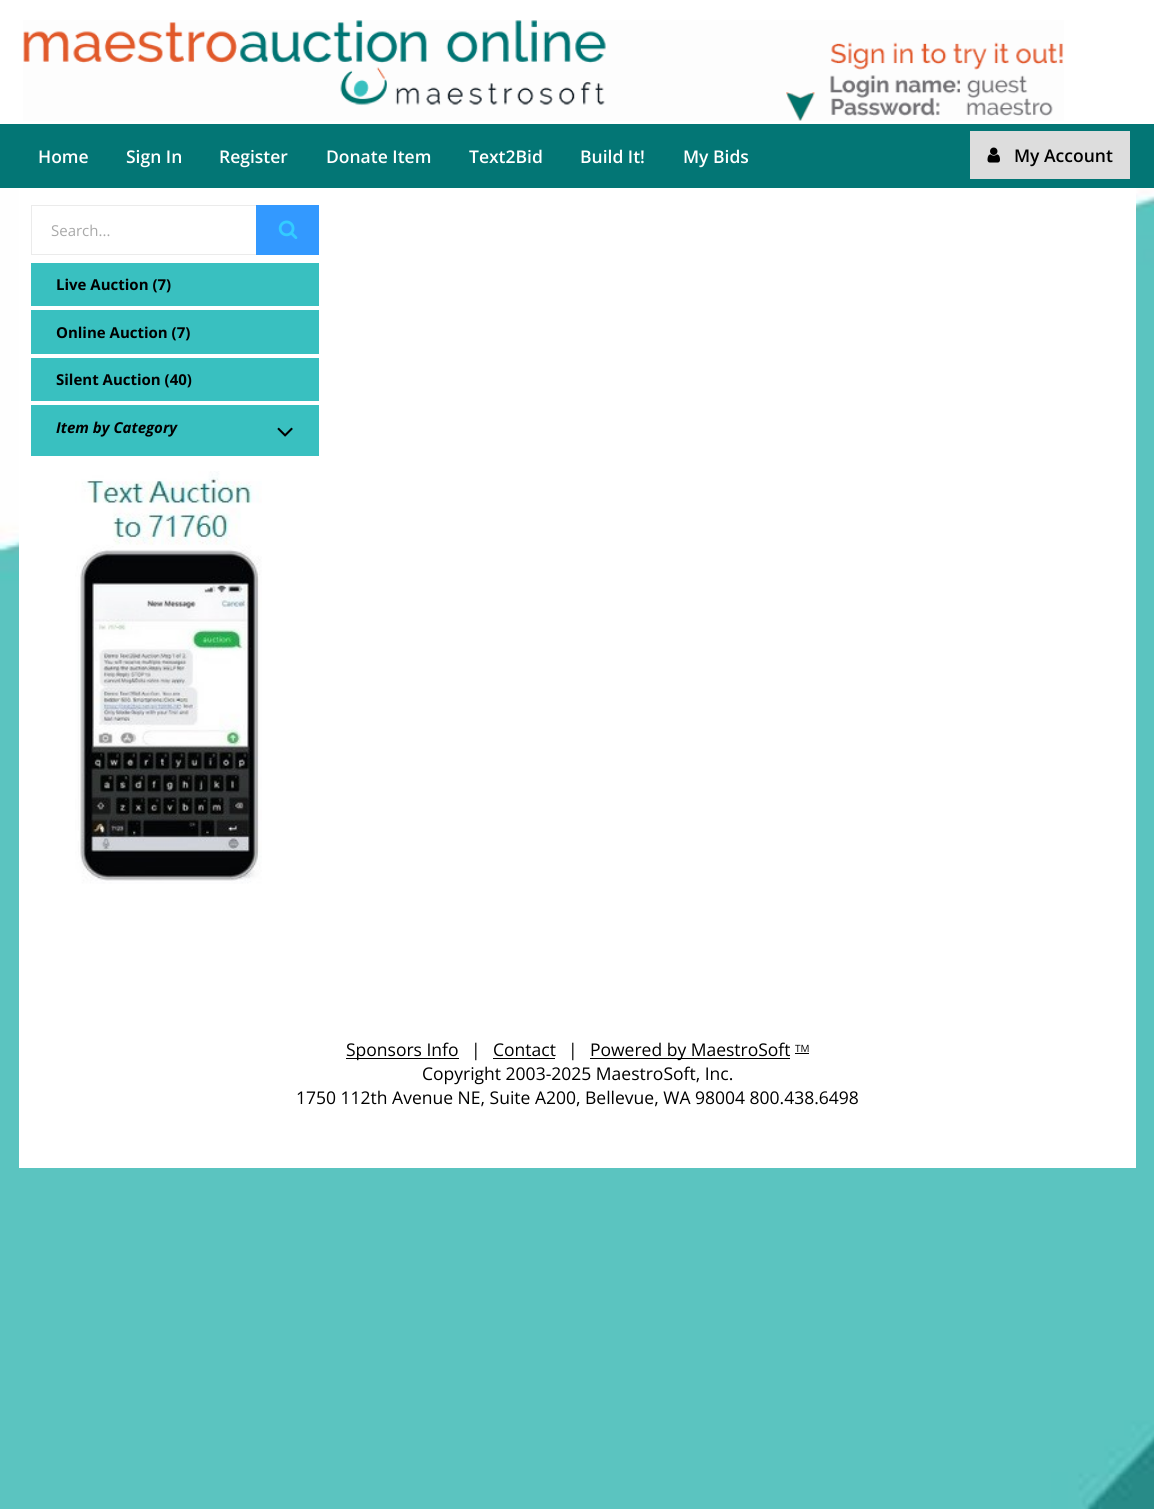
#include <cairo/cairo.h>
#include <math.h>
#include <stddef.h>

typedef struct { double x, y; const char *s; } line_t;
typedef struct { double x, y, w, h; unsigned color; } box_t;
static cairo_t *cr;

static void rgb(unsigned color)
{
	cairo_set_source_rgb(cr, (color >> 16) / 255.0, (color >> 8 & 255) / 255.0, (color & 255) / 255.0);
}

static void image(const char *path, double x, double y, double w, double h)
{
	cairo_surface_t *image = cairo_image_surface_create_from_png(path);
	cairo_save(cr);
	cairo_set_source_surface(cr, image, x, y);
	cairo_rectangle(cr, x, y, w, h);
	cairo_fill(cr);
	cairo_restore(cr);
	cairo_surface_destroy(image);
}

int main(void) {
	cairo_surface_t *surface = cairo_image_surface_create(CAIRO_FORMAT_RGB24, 1154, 1509);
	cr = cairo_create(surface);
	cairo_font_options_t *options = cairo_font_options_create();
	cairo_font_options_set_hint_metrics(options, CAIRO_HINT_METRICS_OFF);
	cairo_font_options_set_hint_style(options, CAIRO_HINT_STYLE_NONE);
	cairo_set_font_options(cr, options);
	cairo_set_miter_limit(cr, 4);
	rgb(0xffffff);
	cairo_paint(cr);
	image("img/1.png", 0, 188, 1154, 1321);
	image("img/2.png", 23, 20, 1041, 101);
	rgb(0x037675);
	cairo_rectangle(cr, 0, 124, 1154, 64);
	cairo_fill(cr);
	rgb(0xdddddd);
	cairo_rectangle(cr, 970, 131, 160, 48);
	cairo_fill(cr);
	image("img/3.png", 987, 147, 13, 16);
	rgb(0xffffff);
	cairo_rectangle(cr, 19, 188, 1117, 980);
	cairo_fill(cr);
	cairo_rectangle(cr, 31.5, 205.5, 287, 49);
	rgb(0xebebeb);
	cairo_set_line_width(cr, 1);
	cairo_stroke(cr);
	rgb(0x3399ff);
	cairo_rectangle(cr, 256, 205, 63, 50);
	cairo_fill(cr);
	image("img/4.png", 278, 220, 20, 19);
	{
		static const box_t items[] = {
			{31, 263, 288, 43, 0x39c0c0},
			{31, 310, 288, 44, 0x39c0c0},
			{31, 358, 288, 43, 0x39c0c0},
			{31, 405, 288, 51, 0x39c0c0},
		};
		for (size_t i = 0; i < sizeof items / sizeof *items; i++) {
			rgb(items[i].color);
			cairo_rectangle(cr, items[i].x, items[i].y, items[i].w, items[i].h);
			cairo_fill(cr);
		}
	}
	image("img/5.png", 277, 427, 16, 10);
	image("img/6.png", 75, 471, 187, 413);
	{
		static const box_t items[] = {
			{346, 1058, 113, 1, 0x000000},
			{493, 1058, 62, 1, 0x000000},
			{590, 1058, 200, 1, 0x000000},
			{795, 1053, 14, 1, 0x000000},
		};
		for (size_t i = 0; i < sizeof items / sizeof *items; i++) {
			rgb(items[i].color);
			cairo_rectangle(cr, items[i].x, items[i].y, items[i].w, items[i].h);
			cairo_fill(cr);
		}
	}
	cairo_select_font_face(cr, "Open Sans SemiBold", CAIRO_FONT_SLANT_NORMAL, CAIRO_FONT_WEIGHT_NORMAL);
	cairo_set_font_size(cr, 17.5);
	rgb(0xffffff);
	{
		static const line_t items[] = {
			{38, 163, "Home"},
			{126, 163, "Sign In"},
			{219, 163, "Register"},
			{326, 163, "Donate Item"},
			{469, 163, "Text2Bid"},
			{580, 163, "Build It!"},
			{683, 163, "My Bids"},
		};
		for (size_t i = 0; i < sizeof items / sizeof *items; i++) {
			cairo_move_to(cr, items[i].x, items[i].y);
			cairo_show_text(cr, items[i].s);
		}
	}
	rgb(0x000000);
	cairo_move_to(cr, 1014, 162);
	cairo_show_text(cr, "My Account");
	cairo_select_font_face(cr, "Open Sans", CAIRO_FONT_SLANT_NORMAL, CAIRO_FONT_WEIGHT_NORMAL);
	cairo_set_font_size(cr, 15);
	rgb(0xa9a9a9);
	cairo_move_to(cr, 51, 236);
	cairo_show_text(cr, "Search...");
	cairo_select_font_face(cr, "Open Sans", CAIRO_FONT_SLANT_NORMAL, CAIRO_FONT_WEIGHT_BOLD);
	rgb(0x000000);
	{
		static const line_t items[] = {
			{56, 290, "Live Auction (7)"},
			{56, 338, "Online Auction (7)"},
			{56, 385, "Silent Auction (40)"},
		};
		for (size_t i = 0; i < sizeof items / sizeof *items; i++) {
			cairo_move_to(cr, items[i].x, items[i].y);
			cairo_show_text(cr, items[i].s);
		}
	}
	cairo_select_font_face(cr, "Open Sans", CAIRO_FONT_SLANT_ITALIC, CAIRO_FONT_WEIGHT_BOLD);
	cairo_move_to(cr, 56, 433);
	cairo_show_text(cr, "Item by Category");
	cairo_select_font_face(cr, "Open Sans", CAIRO_FONT_SLANT_NORMAL, CAIRO_FONT_WEIGHT_NORMAL);
	cairo_set_font_size(cr, 17.5);
	{
		static const line_t items[] = {
			{346, 1056, "Sponsors Info"},
			{471, 1056, "|"},
			{493, 1056, "Contact"},
			{568, 1056, "|"},
			{590, 1056, "Powered by MaestroSoft"},
		};
		for (size_t i = 0; i < sizeof items / sizeof *items; i++) {
			cairo_move_to(cr, items[i].x, items[i].y);
			cairo_show_text(cr, items[i].s);
		}
	}
	cairo_set_font_size(cr, 10);
	cairo_move_to(cr, 795, 1052);
	cairo_show_text(cr, "TM");
	cairo_set_font_size(cr, 17.5);
	cairo_move_to(cr, 422, 1080);
	cairo_show_text(cr, "Copyright 2003-2025 MaestroSoft, Inc.");
	cairo_move_to(cr, 296, 1104);
	cairo_show_text(cr, "1750 112th Avenue NE, Suite A200, Bellevue, WA 98004 800.438.6498");
	cairo_surface_write_to_png(surface, "page.png");
	cairo_font_options_destroy(options);
	cairo_destroy(cr);
	cairo_surface_destroy(surface);
	return 0;
}
